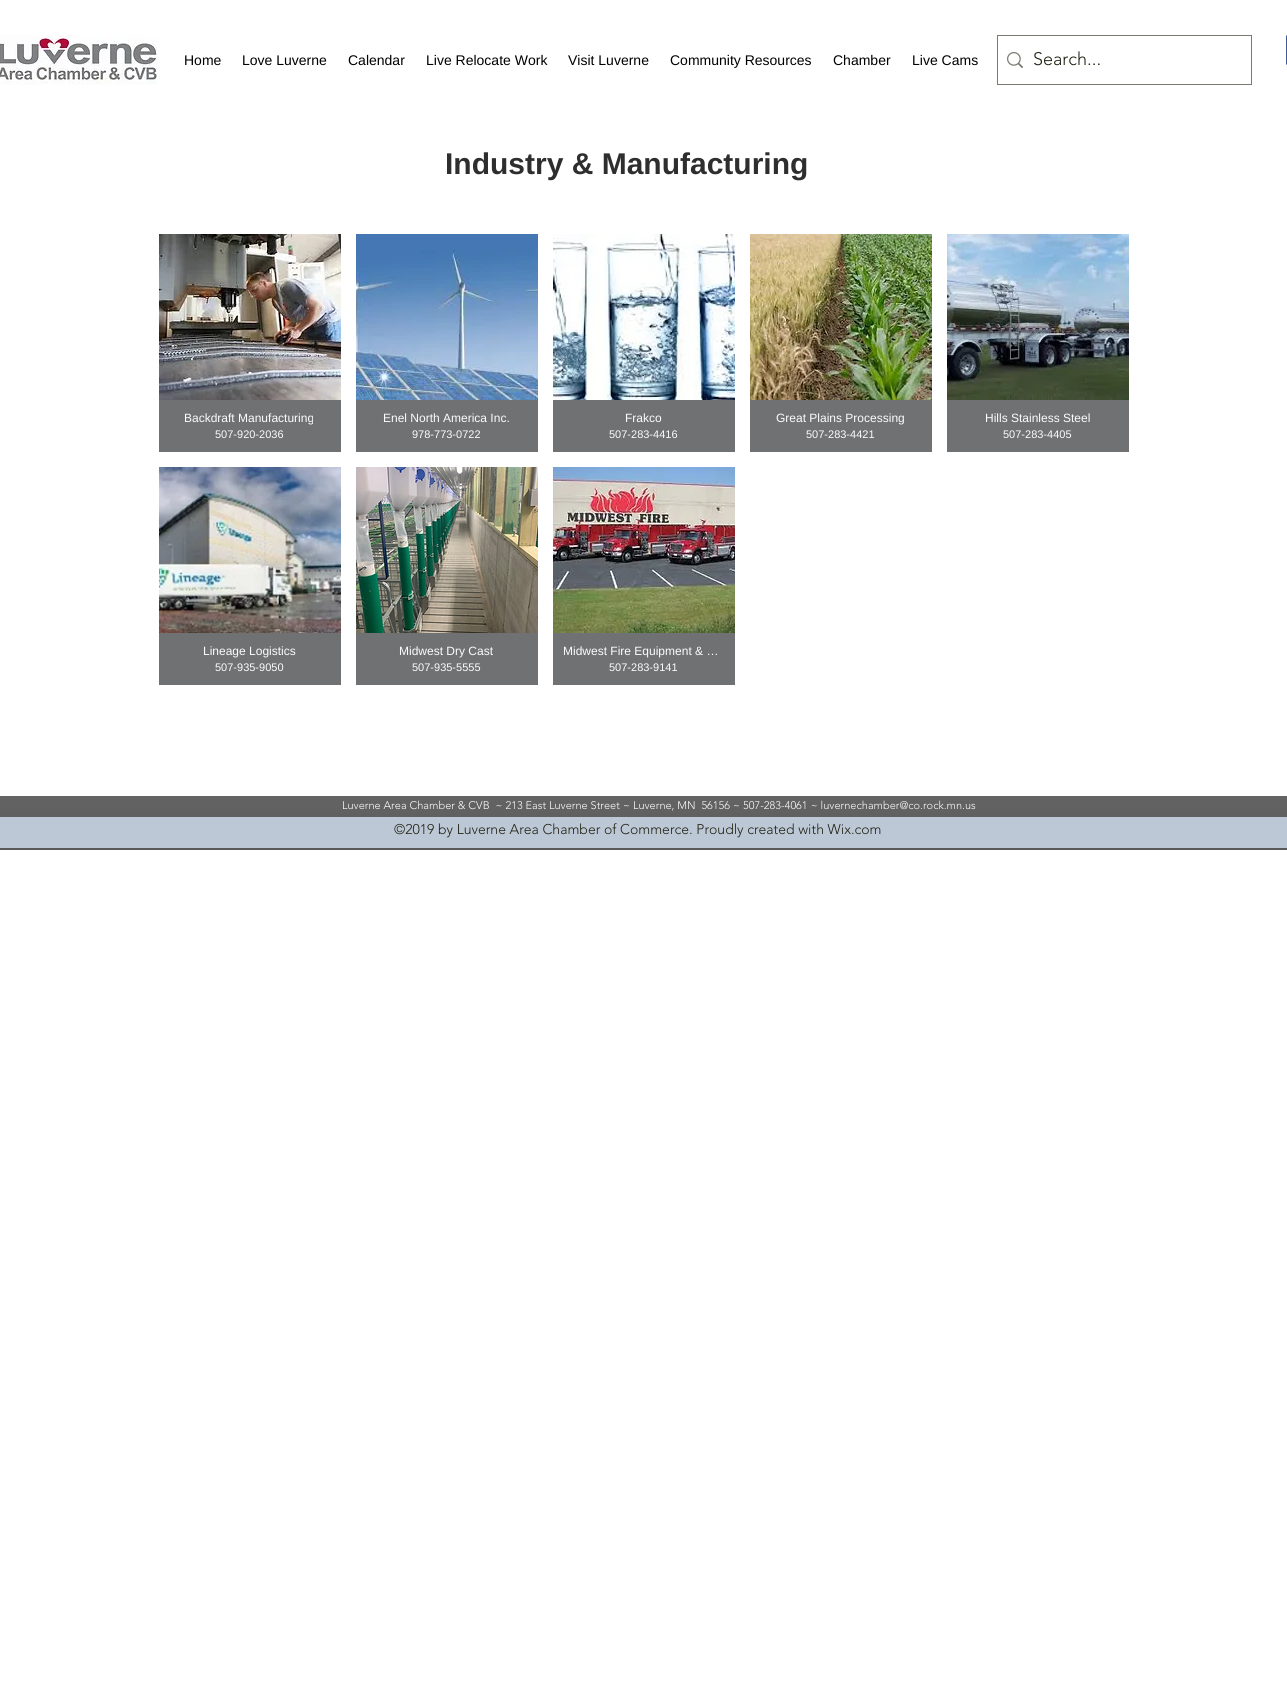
#include <cairo/cairo.h>
#include <math.h>
#include <stddef.h>

typedef struct { double x, y; const char *s; } line_t;
static cairo_t *cr;

static void rgb(unsigned color)
{
	cairo_set_source_rgb(cr, (color >> 16) / 255.0, (color >> 8 & 255) / 255.0, (color & 255) / 255.0);
}

static void image(const char *path, double x, double y, double w, double h)
{
	cairo_surface_t *image = cairo_image_surface_create_from_png(path);
	cairo_save(cr);
	cairo_set_source_surface(cr, image, x, y);
	cairo_rectangle(cr, x, y, w, h);
	cairo_fill(cr);
	cairo_restore(cr);
	cairo_surface_destroy(image);
}

int main(void) {
	cairo_surface_t *surface = cairo_image_surface_create(CAIRO_FORMAT_RGB24, 1287, 1699);
	cr = cairo_create(surface);
	cairo_font_options_t *options = cairo_font_options_create();
	cairo_font_options_set_hint_metrics(options, CAIRO_HINT_METRICS_OFF);
	cairo_font_options_set_hint_style(options, CAIRO_HINT_STYLE_NONE);
	cairo_set_font_options(cr, options);
	cairo_set_miter_limit(cr, 4);
	rgb(0xffffff);
	cairo_paint(cr);
	image("img/1.png", 0, 35, 158, 50);
	cairo_rectangle(cr, 997.5, 35.5, 254, 49);
	rgb(0x7a7a71);
	cairo_set_line_width(cr, 1);
	cairo_stroke(cr);
	image("img/2.png", 1007, 52, 16, 16);
	image("img/3.png", 1286, 35, 1, 30);
	image("img/4.png", 159, 234, 182, 166);
	rgb(0x707173);
	cairo_rectangle(cr, 159, 400, 182, 52);
	cairo_fill(cr);
	image("img/5.png", 356, 234, 182, 166);
	cairo_rectangle(cr, 356, 400, 182, 52);
	cairo_fill(cr);
	image("img/6.png", 553, 234, 182, 166);
	cairo_rectangle(cr, 553, 400, 182, 52);
	cairo_fill(cr);
	image("img/7.png", 750, 234, 182, 166);
	cairo_rectangle(cr, 750, 400, 182, 52);
	cairo_fill(cr);
	image("img/8.png", 947, 234, 182, 166);
	cairo_rectangle(cr, 947, 400, 182, 52);
	cairo_fill(cr);
	image("img/9.png", 159, 467, 182, 166);
	cairo_rectangle(cr, 159, 633, 182, 52);
	cairo_fill(cr);
	image("img/10.png", 356, 467, 182, 166);
	cairo_rectangle(cr, 356, 633, 182, 52);
	cairo_fill(cr);
	image("img/11.png", 553, 467, 182, 166);
	cairo_rectangle(cr, 553, 633, 182, 52);
	cairo_fill(cr);
	rgb(0x2f2e2e);
	cairo_rectangle(cr, 0, 796, 1287, 54);
	cairo_fill(cr);
	image("img/12.png", 0, 796, 1287, 54);
	rgb(0xbcc8d6);
	cairo_rectangle(cr, 0, 817, 1287, 31);
	cairo_fill(cr);
	cairo_select_font_face(cr, "Liberation Sans", CAIRO_FONT_SLANT_NORMAL, CAIRO_FONT_WEIGHT_NORMAL);
	cairo_set_font_size(cr, 14);
	rgb(0x000000);
	{
		static const line_t items[] = {
			{184, 65, "Home"},
			{242, 65, "Love Luverne"},
			{348, 65, "Calendar"},
			{426, 65, "Live Relocate Work"},
			{568, 65, "Visit Luverne"},
			{670, 65, "Community Resources"},
			{833, 65, "Chamber"},
			{912, 65, "Live Cams"},
		};
		for (size_t i = 0; i < sizeof items / sizeof *items; i++) {
			cairo_move_to(cr, items[i].x, items[i].y);
			cairo_show_text(cr, items[i].s);
		}
	}
	cairo_select_font_face(cr, "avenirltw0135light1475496 Light", CAIRO_FONT_SLANT_NORMAL, CAIRO_FONT_WEIGHT_NORMAL);
	cairo_set_font_size(cr, 18);
	rgb(0x222213);
	cairo_move_to(cr, 1033, 65);
	cairo_show_text(cr, "Search...");
	cairo_select_font_face(cr, "Liberation Sans", CAIRO_FONT_SLANT_NORMAL, CAIRO_FONT_WEIGHT_BOLD);
	cairo_set_font_size(cr, 30);
	rgb(0x2f2e2e);
	cairo_move_to(cr, 445, 174);
	cairo_show_text(cr, "Industry & Manufacturing");
	cairo_select_font_face(cr, "Liberation Sans", CAIRO_FONT_SLANT_NORMAL, CAIRO_FONT_WEIGHT_NORMAL);
	cairo_set_font_size(cr, 12);
	rgb(0xfcfcfc);
	cairo_move_to(cr, 184, 422);
	cairo_show_text(cr, "Backdraft Manufacturing");
	cairo_set_font_size(cr, 11);
	cairo_move_to(cr, 215, 438);
	cairo_show_text(cr, "507-920-2036");
	cairo_set_font_size(cr, 12);
	cairo_move_to(cr, 383, 422);
	cairo_show_text(cr, "Enel North America Inc.");
	cairo_set_font_size(cr, 11);
	cairo_move_to(cr, 412, 438);
	cairo_show_text(cr, "978-773-0722");
	cairo_set_font_size(cr, 12);
	cairo_move_to(cr, 625, 422);
	cairo_show_text(cr, "Frakco");
	cairo_set_font_size(cr, 11);
	cairo_move_to(cr, 609, 438);
	cairo_show_text(cr, "507-283-4416");
	cairo_set_font_size(cr, 12);
	cairo_move_to(cr, 776, 422);
	cairo_show_text(cr, "Great Plains Processing");
	cairo_set_font_size(cr, 11);
	cairo_move_to(cr, 806, 438);
	cairo_show_text(cr, "507-283-4421");
	cairo_set_font_size(cr, 12);
	cairo_move_to(cr, 985, 422);
	cairo_show_text(cr, "Hills Stainless Steel");
	cairo_set_font_size(cr, 11);
	cairo_move_to(cr, 1003, 438);
	cairo_show_text(cr, "507-283-4405");
	cairo_set_font_size(cr, 12);
	cairo_move_to(cr, 203, 655);
	cairo_show_text(cr, "Lineage Logistics");
	cairo_set_font_size(cr, 11);
	cairo_move_to(cr, 215, 671);
	cairo_show_text(cr, "507-935-9050");
	cairo_set_font_size(cr, 12);
	cairo_move_to(cr, 399, 655);
	cairo_show_text(cr, "Midwest Dry Cast");
	cairo_set_font_size(cr, 11);
	cairo_move_to(cr, 412, 671);
	cairo_show_text(cr, "507-935-5555");
	cairo_set_font_size(cr, 12);
	cairo_move_to(cr, 563, 655);
	cairo_show_text(cr, "Midwest Fire Equipment & …");
	cairo_set_font_size(cr, 11);
	cairo_move_to(cr, 609, 671);
	cairo_show_text(cr, "507-283-9141");
	cairo_select_font_face(cr, "avenirltw0135light1475496 Light", CAIRO_FONT_SLANT_NORMAL, CAIRO_FONT_WEIGHT_NORMAL);
	cairo_move_to(cr, 342, 809);
	cairo_show_text(cr, "Luverne Area Chamber & CVB  ~ 213 East Luverne Street ~ Luverne, MN  56156 ~ 507-283-4061 ~ luvernechamber@co.rock.mn.us");
	cairo_set_font_size(cr, 14);
	rgb(0x222213);
	cairo_move_to(cr, 394, 834);
	cairo_show_text(cr, "©2019 by Luverne Area Chamber of Commerce. Proudly created with Wix.com");
	cairo_surface_write_to_png(surface, "page.png");
	cairo_font_options_destroy(options);
	cairo_destroy(cr);
	cairo_surface_destroy(surface);
	return 0;
}
